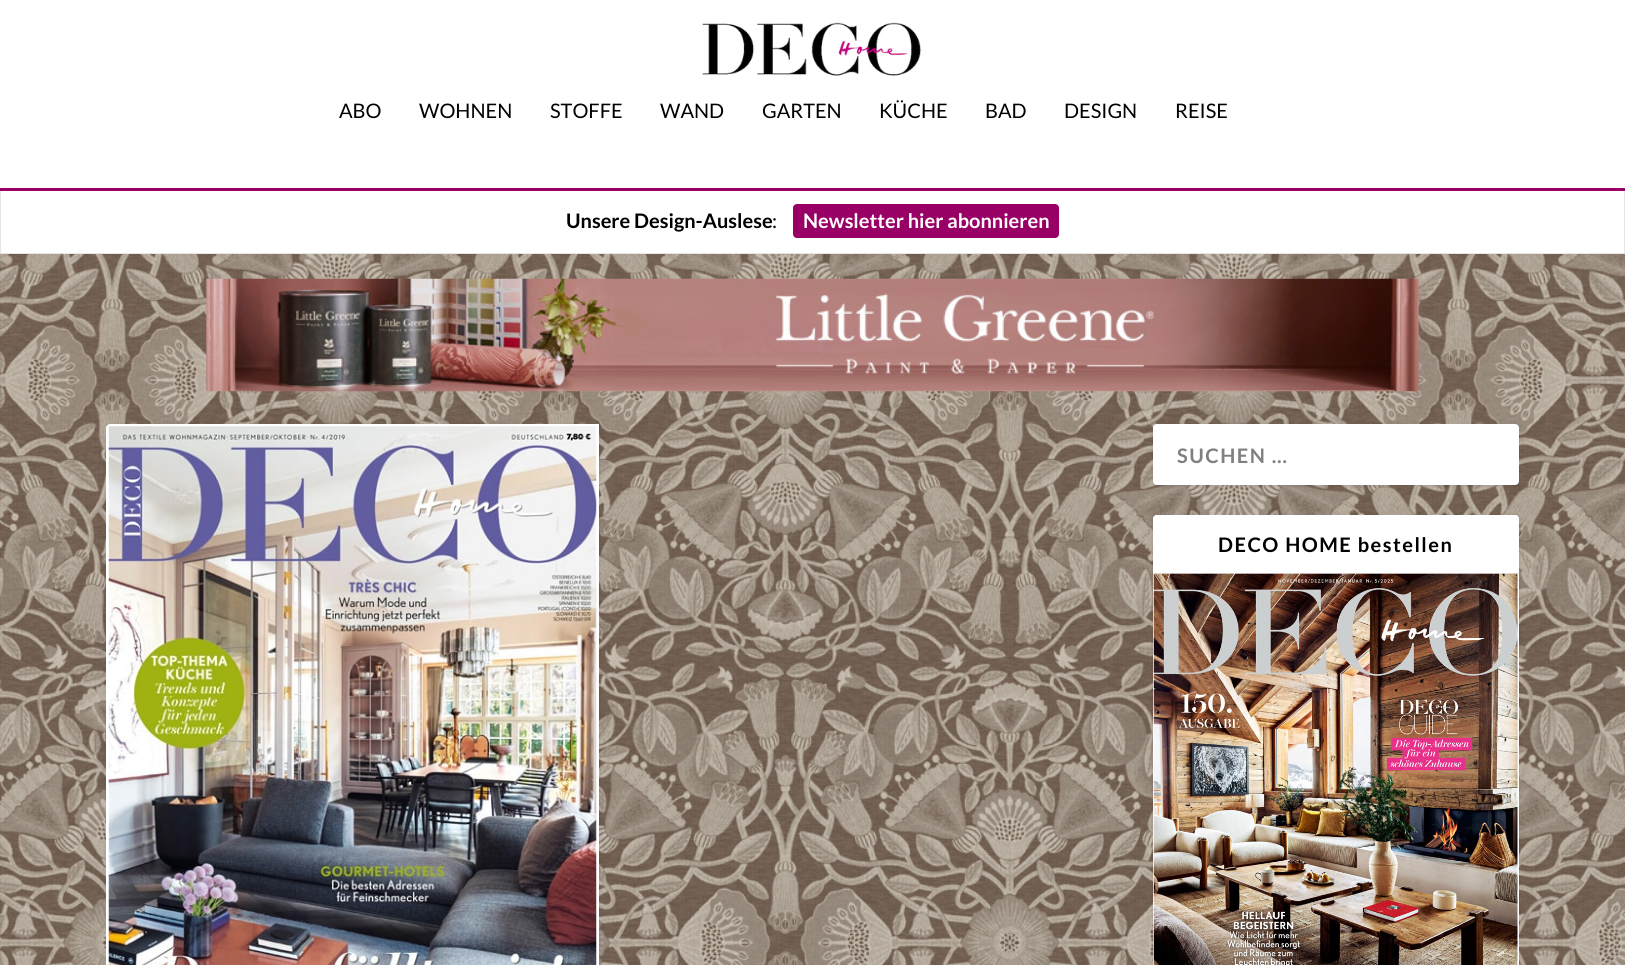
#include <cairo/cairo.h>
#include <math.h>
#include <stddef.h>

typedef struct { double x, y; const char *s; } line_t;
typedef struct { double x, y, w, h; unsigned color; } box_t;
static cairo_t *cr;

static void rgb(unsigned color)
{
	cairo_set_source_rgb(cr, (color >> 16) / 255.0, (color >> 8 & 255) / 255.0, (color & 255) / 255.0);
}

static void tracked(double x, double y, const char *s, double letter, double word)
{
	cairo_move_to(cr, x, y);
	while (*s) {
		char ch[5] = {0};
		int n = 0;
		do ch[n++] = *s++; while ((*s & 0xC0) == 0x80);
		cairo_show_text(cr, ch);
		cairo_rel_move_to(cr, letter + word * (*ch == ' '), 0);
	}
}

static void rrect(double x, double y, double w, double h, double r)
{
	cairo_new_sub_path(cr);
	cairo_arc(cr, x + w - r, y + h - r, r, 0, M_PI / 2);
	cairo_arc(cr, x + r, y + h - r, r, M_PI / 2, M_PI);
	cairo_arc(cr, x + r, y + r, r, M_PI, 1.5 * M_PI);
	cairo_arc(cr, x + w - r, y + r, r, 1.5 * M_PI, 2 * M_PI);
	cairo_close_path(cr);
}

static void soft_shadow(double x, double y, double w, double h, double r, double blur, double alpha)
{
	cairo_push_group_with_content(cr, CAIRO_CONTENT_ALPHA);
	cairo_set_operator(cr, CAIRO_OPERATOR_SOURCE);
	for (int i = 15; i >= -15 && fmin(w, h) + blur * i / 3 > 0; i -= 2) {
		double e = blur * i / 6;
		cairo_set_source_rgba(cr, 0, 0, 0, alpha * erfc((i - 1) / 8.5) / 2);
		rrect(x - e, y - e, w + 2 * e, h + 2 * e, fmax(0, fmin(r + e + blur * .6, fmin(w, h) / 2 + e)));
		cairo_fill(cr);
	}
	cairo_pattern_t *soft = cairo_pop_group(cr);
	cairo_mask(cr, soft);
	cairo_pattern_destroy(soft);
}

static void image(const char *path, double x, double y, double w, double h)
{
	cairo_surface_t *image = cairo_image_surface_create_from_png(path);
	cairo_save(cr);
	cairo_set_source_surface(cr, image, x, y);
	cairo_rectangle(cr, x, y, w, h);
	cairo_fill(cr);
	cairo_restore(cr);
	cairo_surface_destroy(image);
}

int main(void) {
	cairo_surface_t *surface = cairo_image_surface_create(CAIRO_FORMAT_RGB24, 1625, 965);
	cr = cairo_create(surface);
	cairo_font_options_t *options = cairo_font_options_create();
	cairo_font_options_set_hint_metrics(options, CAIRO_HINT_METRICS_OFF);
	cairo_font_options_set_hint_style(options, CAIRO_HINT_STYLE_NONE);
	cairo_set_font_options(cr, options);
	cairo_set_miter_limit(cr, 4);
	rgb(0xffffff);
	cairo_paint(cr);
	image("img/1.png", 0, 254, 1625, 711);
	{
		static const box_t items[] = {
			{1624, 188, 1, 66, 0xe5e5e5},
			{0, 253, 1625, 1, 0xe5e5e5},
			{0, 188, 1, 66, 0xe5e5e5},
			{0, 188, 1625, 3, 0x990066},
		};
		for (size_t i = 0; i < sizeof items / sizeof *items; i++) {
			rgb(items[i].color);
			cairo_rectangle(cr, items[i].x, items[i].y, items[i].w, items[i].h);
			cairo_fill(cr);
		}
	}
	image("img/2.png", 702, 22, 219, 54);
	rrect(793, 204, 266, 34, 4);
	cairo_fill(cr);
	image("img/3.png", 206, 278, 1213, 114);
	rgb(0x000000);
	soft_shadow(106, 425, 493, 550, 4, 2, 0.1);
	rgb(0xffffff);
	cairo_set_fill_rule(cr, CAIRO_FILL_RULE_EVEN_ODD);
	cairo_new_path(cr);
	cairo_move_to(cr, 110, 424);
	cairo_curve_to(cr, 108, 424, 106, 426, 106, 428);
	cairo_line_to(cr, 106, 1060);
	cairo_line_to(cr, 599, 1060);
	cairo_line_to(cr, 599, 424);
	cairo_close_path(cr);
	cairo_move_to(cr, 109, 427);
	cairo_line_to(cr, 109, 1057);
	cairo_line_to(cr, 596, 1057);
	cairo_line_to(cr, 596, 427);
	cairo_close_path(cr);
	cairo_fill(cr);
	image("img/4.png", 108, 426, 489, 539);
	rgb(0x000000);
	soft_shadow(1153, 425, 366, 61, 4, 2, 0.1);
	rgb(0xffffff);
	rrect(1153, 424, 366, 61, 4);
	cairo_fill(cr);
	rgb(0x000000);
	soft_shadow(1153, 516, 366, 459, 4, 2, 0.1);
	rgb(0xffffff);
	rrect(1153, 515, 366, 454, 4);
	cairo_fill(cr);
	cairo_new_path(cr);
	cairo_move_to(cr, 1157, 515);
	cairo_line_to(cr, 1515, 515);
	cairo_curve_to(cr, 1517, 515, 1519, 517, 1519, 519);
	cairo_line_to(cr, 1519, 574);
	cairo_line_to(cr, 1153, 574);
	cairo_line_to(cr, 1153, 519);
	cairo_curve_to(cr, 1153, 517, 1155, 515, 1157, 515);
	cairo_close_path(cr);
	cairo_fill(cr);
	rgb(0xe6e6e6);
	cairo_rectangle(cr, 1153, 573, 366, 1);
	cairo_fill(cr);
	image("img/5.png", 1153, 573, 365, 392);
	cairo_select_font_face(cr, "Lato", CAIRO_FONT_SLANT_NORMAL, CAIRO_FONT_WEIGHT_NORMAL);
	cairo_set_font_size(cr, 20);
	rgb(0x000000);
	{
		static const line_t items[] = {
			{339, 118, "ABO"},
			{419, 118, "WOHNEN"},
			{550, 118, "STOFFE"},
			{660, 118, "WAND"},
			{762, 118, "GARTEN"},
			{879, 118, "KÜCHE"},
			{985, 118, "BAD"},
			{1064, 118, "DESIGN"},
			{1175, 118, "REISE"},
		};
		for (size_t i = 0; i < sizeof items / sizeof *items; i++) {
			cairo_move_to(cr, items[i].x, items[i].y);
			cairo_show_text(cr, items[i].s);
		}
	}
	cairo_select_font_face(cr, "Lato", CAIRO_FONT_SLANT_NORMAL, CAIRO_FONT_WEIGHT_BOLD);
	cairo_move_to(cr, 566, 228);
	cairo_show_text(cr, "Unsere Design-Auslese");
	cairo_select_font_face(cr, "Lato", CAIRO_FONT_SLANT_NORMAL, CAIRO_FONT_WEIGHT_NORMAL);
	cairo_move_to(cr, 772, 228);
	cairo_show_text(cr, ":");
	cairo_select_font_face(cr, "Lato", CAIRO_FONT_SLANT_NORMAL, CAIRO_FONT_WEIGHT_BOLD);
	rgb(0xffffff);
	cairo_move_to(cr, 803, 228);
	cairo_show_text(cr, "Newsletter hier abonnieren");
	rgb(0x808080);
	tracked(1177, 463, "SUCHEN …", 1.5, 0);
	rgb(0x000000);
	tracked(1218, 552, "DECO HOME bestellen", 1.5, 0);
	cairo_surface_write_to_png(surface, "page.png");
	cairo_font_options_destroy(options);
	cairo_destroy(cr);
	cairo_surface_destroy(surface);
	return 0;
}
